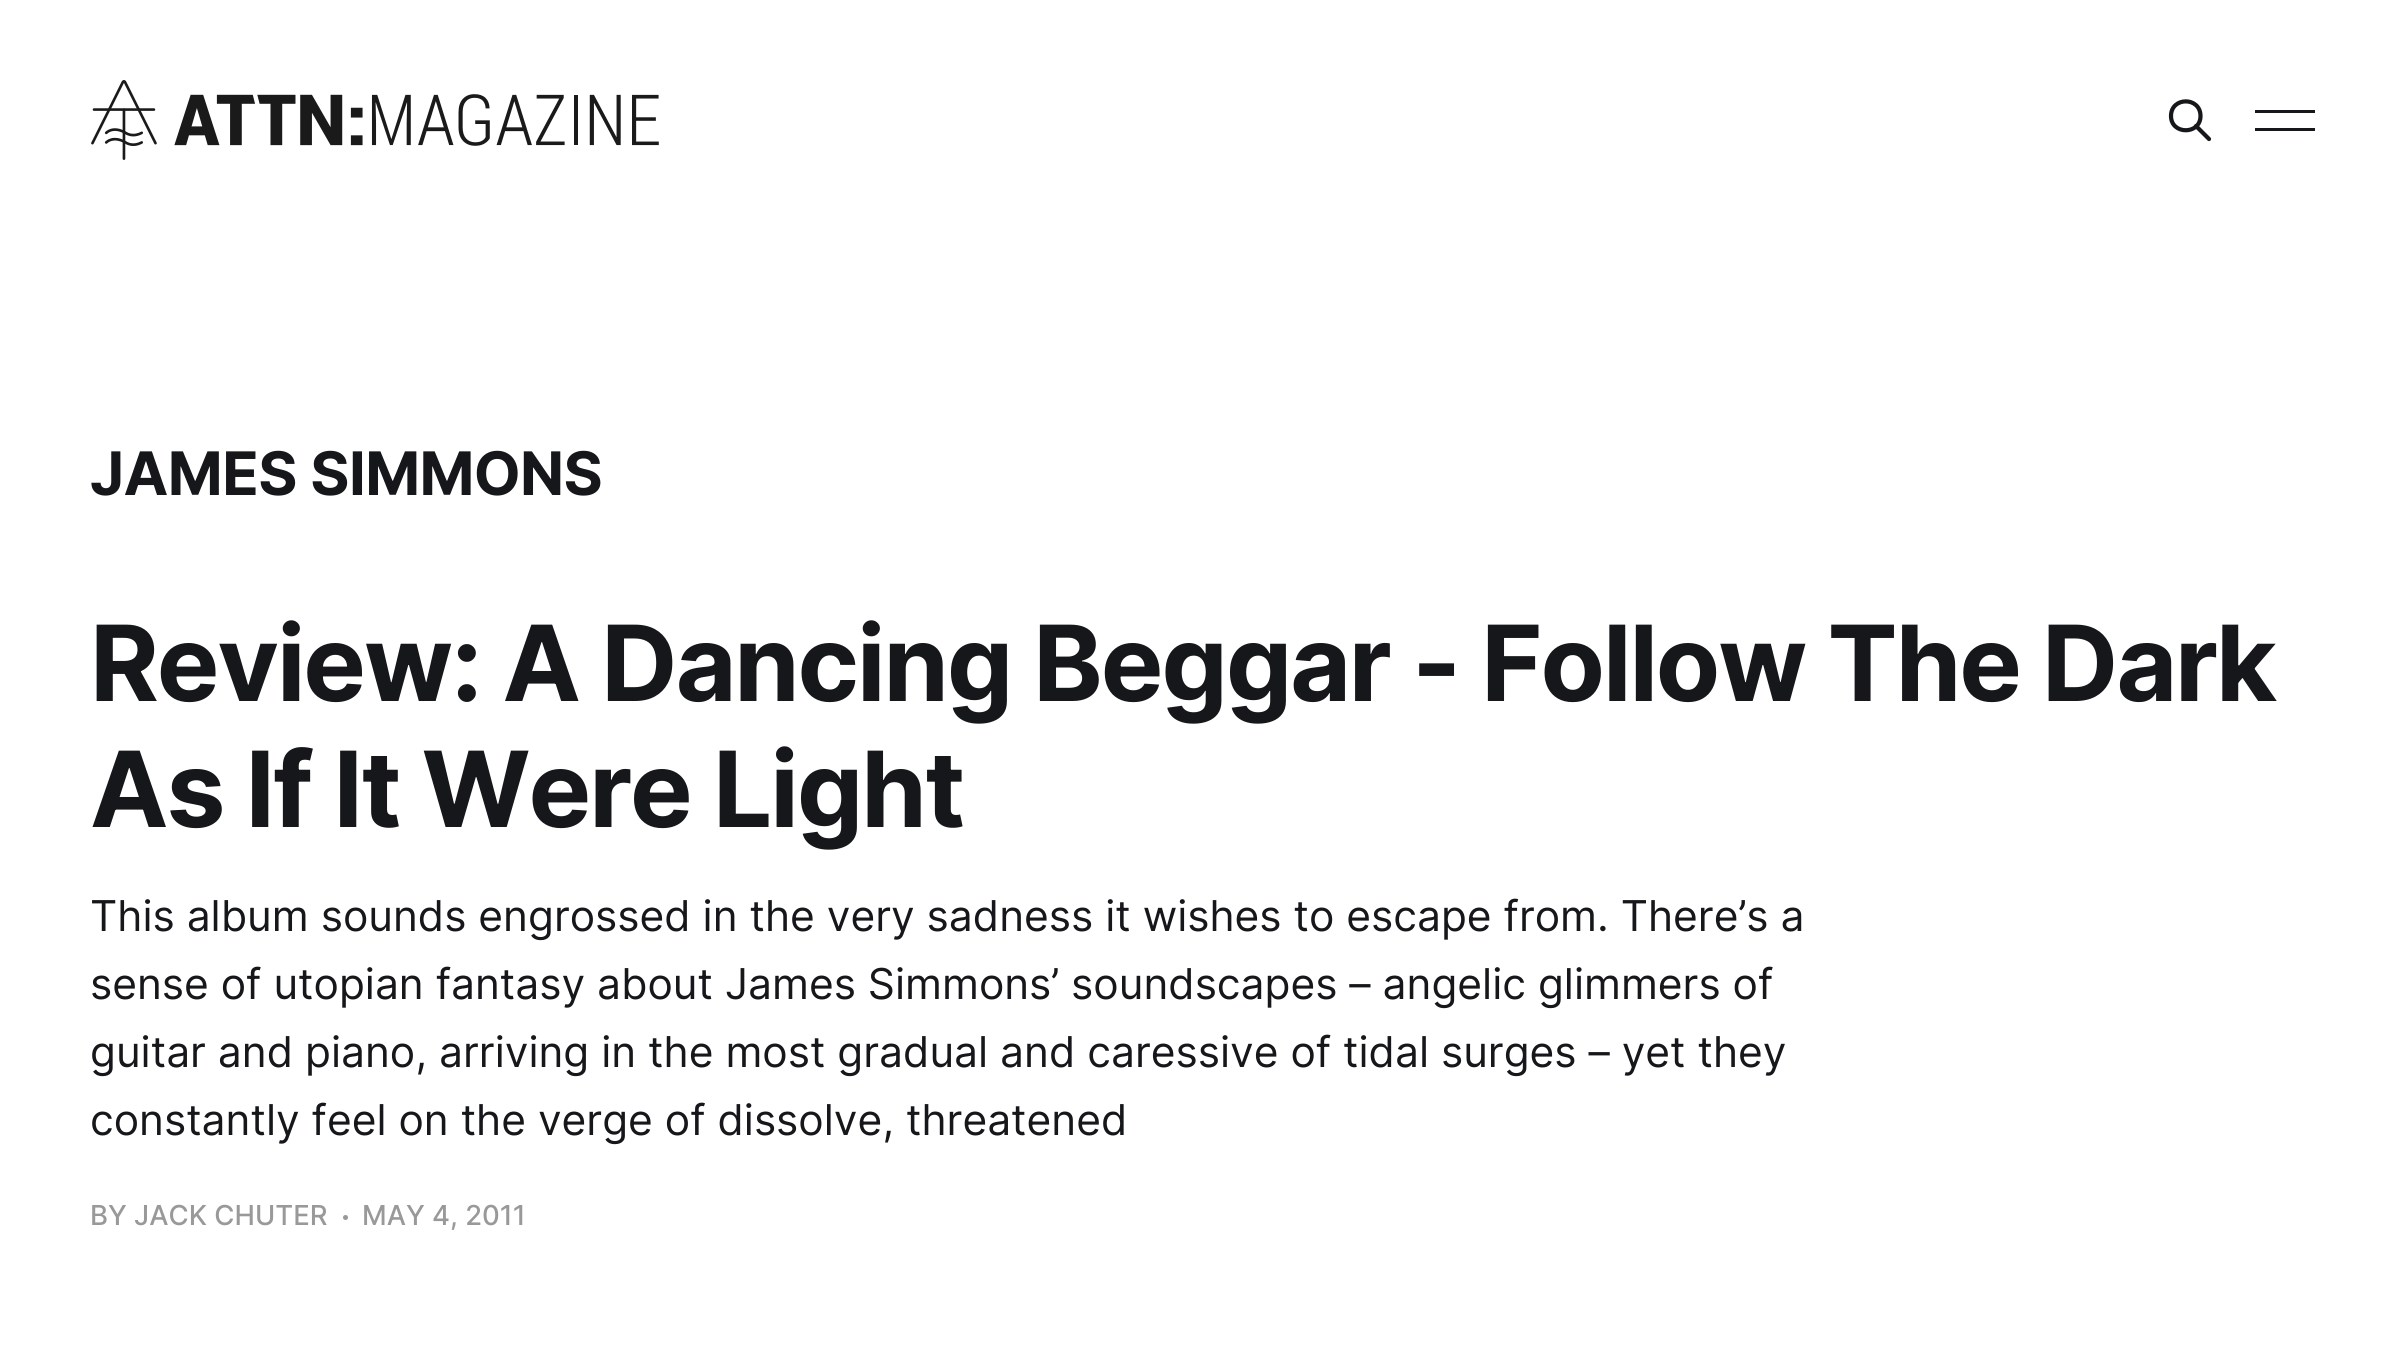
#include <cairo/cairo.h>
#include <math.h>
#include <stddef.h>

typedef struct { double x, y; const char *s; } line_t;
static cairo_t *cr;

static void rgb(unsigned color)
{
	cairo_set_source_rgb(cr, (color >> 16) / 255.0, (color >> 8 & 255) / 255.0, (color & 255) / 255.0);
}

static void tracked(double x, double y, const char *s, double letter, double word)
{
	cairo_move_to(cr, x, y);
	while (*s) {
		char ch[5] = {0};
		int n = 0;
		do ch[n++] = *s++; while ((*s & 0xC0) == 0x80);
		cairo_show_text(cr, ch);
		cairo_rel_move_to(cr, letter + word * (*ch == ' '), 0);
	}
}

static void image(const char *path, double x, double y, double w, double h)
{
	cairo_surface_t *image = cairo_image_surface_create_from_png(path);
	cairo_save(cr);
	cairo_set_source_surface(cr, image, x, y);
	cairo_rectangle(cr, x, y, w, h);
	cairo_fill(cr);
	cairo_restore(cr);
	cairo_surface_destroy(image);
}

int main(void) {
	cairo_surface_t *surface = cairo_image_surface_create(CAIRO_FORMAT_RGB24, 2404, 1363);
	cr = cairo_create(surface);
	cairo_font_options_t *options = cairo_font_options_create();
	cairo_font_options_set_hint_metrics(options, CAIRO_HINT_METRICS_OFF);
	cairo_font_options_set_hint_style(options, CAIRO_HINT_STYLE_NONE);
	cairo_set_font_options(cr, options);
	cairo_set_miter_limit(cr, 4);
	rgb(0xffffff);
	cairo_paint(cr);
	image("img/1.png", 91, 80, 568, 80);
	cairo_new_path(cr);
	cairo_move_to(cr, 2209, 139);
	cairo_line_to(cr, 2196, 126);
	cairo_move_to(cr, 2200.5, 116);
	cairo_curve_to(cr, 2200.5, 135, 2171, 135, 2171, 116);
	cairo_curve_to(cr, 2171, 96.5, 2200.5, 96.5, 2200.5, 116);
	cairo_close_path(cr);
	rgb(0x15171a);
	cairo_set_line_width(cr, 4.2);
	cairo_set_line_cap(cr, CAIRO_LINE_CAP_ROUND);
	cairo_set_line_join(cr, CAIRO_LINE_JOIN_ROUND);
	cairo_stroke(cr);
	cairo_rectangle(cr, 2255, 110, 60, 3);
	cairo_fill(cr);
	cairo_rectangle(cr, 2255, 128, 60, 3);
	cairo_fill(cr);
	rgb(0x999999);
	cairo_arc(cr, 345.5, 1217.5, 2.5, 0, 2 * M_PI);
	cairo_fill(cr);
	cairo_select_font_face(cr, "Inter", CAIRO_FONT_SLANT_NORMAL, CAIRO_FONT_WEIGHT_BOLD);
	cairo_set_font_size(cr, 60);
	rgb(0x15171a);
	tracked(90, 495, "JAMES SIMMONS", -0.6, 0);
	cairo_set_font_size(cr, 105);
	tracked(90, 701, "Review: A Dancing Beggar - Follow The Dark", -2.1, 0);
	tracked(90, 827, "As If It Were Light", -2.1, 0);
	cairo_select_font_face(cr, "Inter", CAIRO_FONT_SLANT_NORMAL, CAIRO_FONT_WEIGHT_NORMAL);
	cairo_set_font_size(cr, 42.5);
	{
		static const line_t items[] = {
			{90, 931, "This album sounds engrossed in the very sadness it wishes to escape from. There’s a"},
			{90, 999, "sense of utopian fantasy about James Simmons’ soundscapes – angelic glimmers of"},
			{90, 1067, "guitar and piano, arriving in the most gradual and caressive of tidal surges – yet they"},
			{90, 1135, "constantly feel on the verge of dissolve, threatened"},
		};
		for (size_t i = 0; i < sizeof items / sizeof *items; i++) {
			cairo_move_to(cr, items[i].x, items[i].y);
			cairo_show_text(cr, items[i].s);
		}
	}
	cairo_select_font_face(cr, "Inter Medium", CAIRO_FONT_SLANT_NORMAL, CAIRO_FONT_WEIGHT_NORMAL);
	cairo_set_font_size(cr, 27.5);
	rgb(0x999999);
	cairo_move_to(cr, 90, 1225);
	cairo_show_text(cr, "BY JACK CHUTER");
	cairo_move_to(cr, 362, 1225);
	cairo_show_text(cr, "MAY 4, 2011");
	cairo_surface_write_to_png(surface, "page.png");
	cairo_font_options_destroy(options);
	cairo_destroy(cr);
	cairo_surface_destroy(surface);
	return 0;
}
